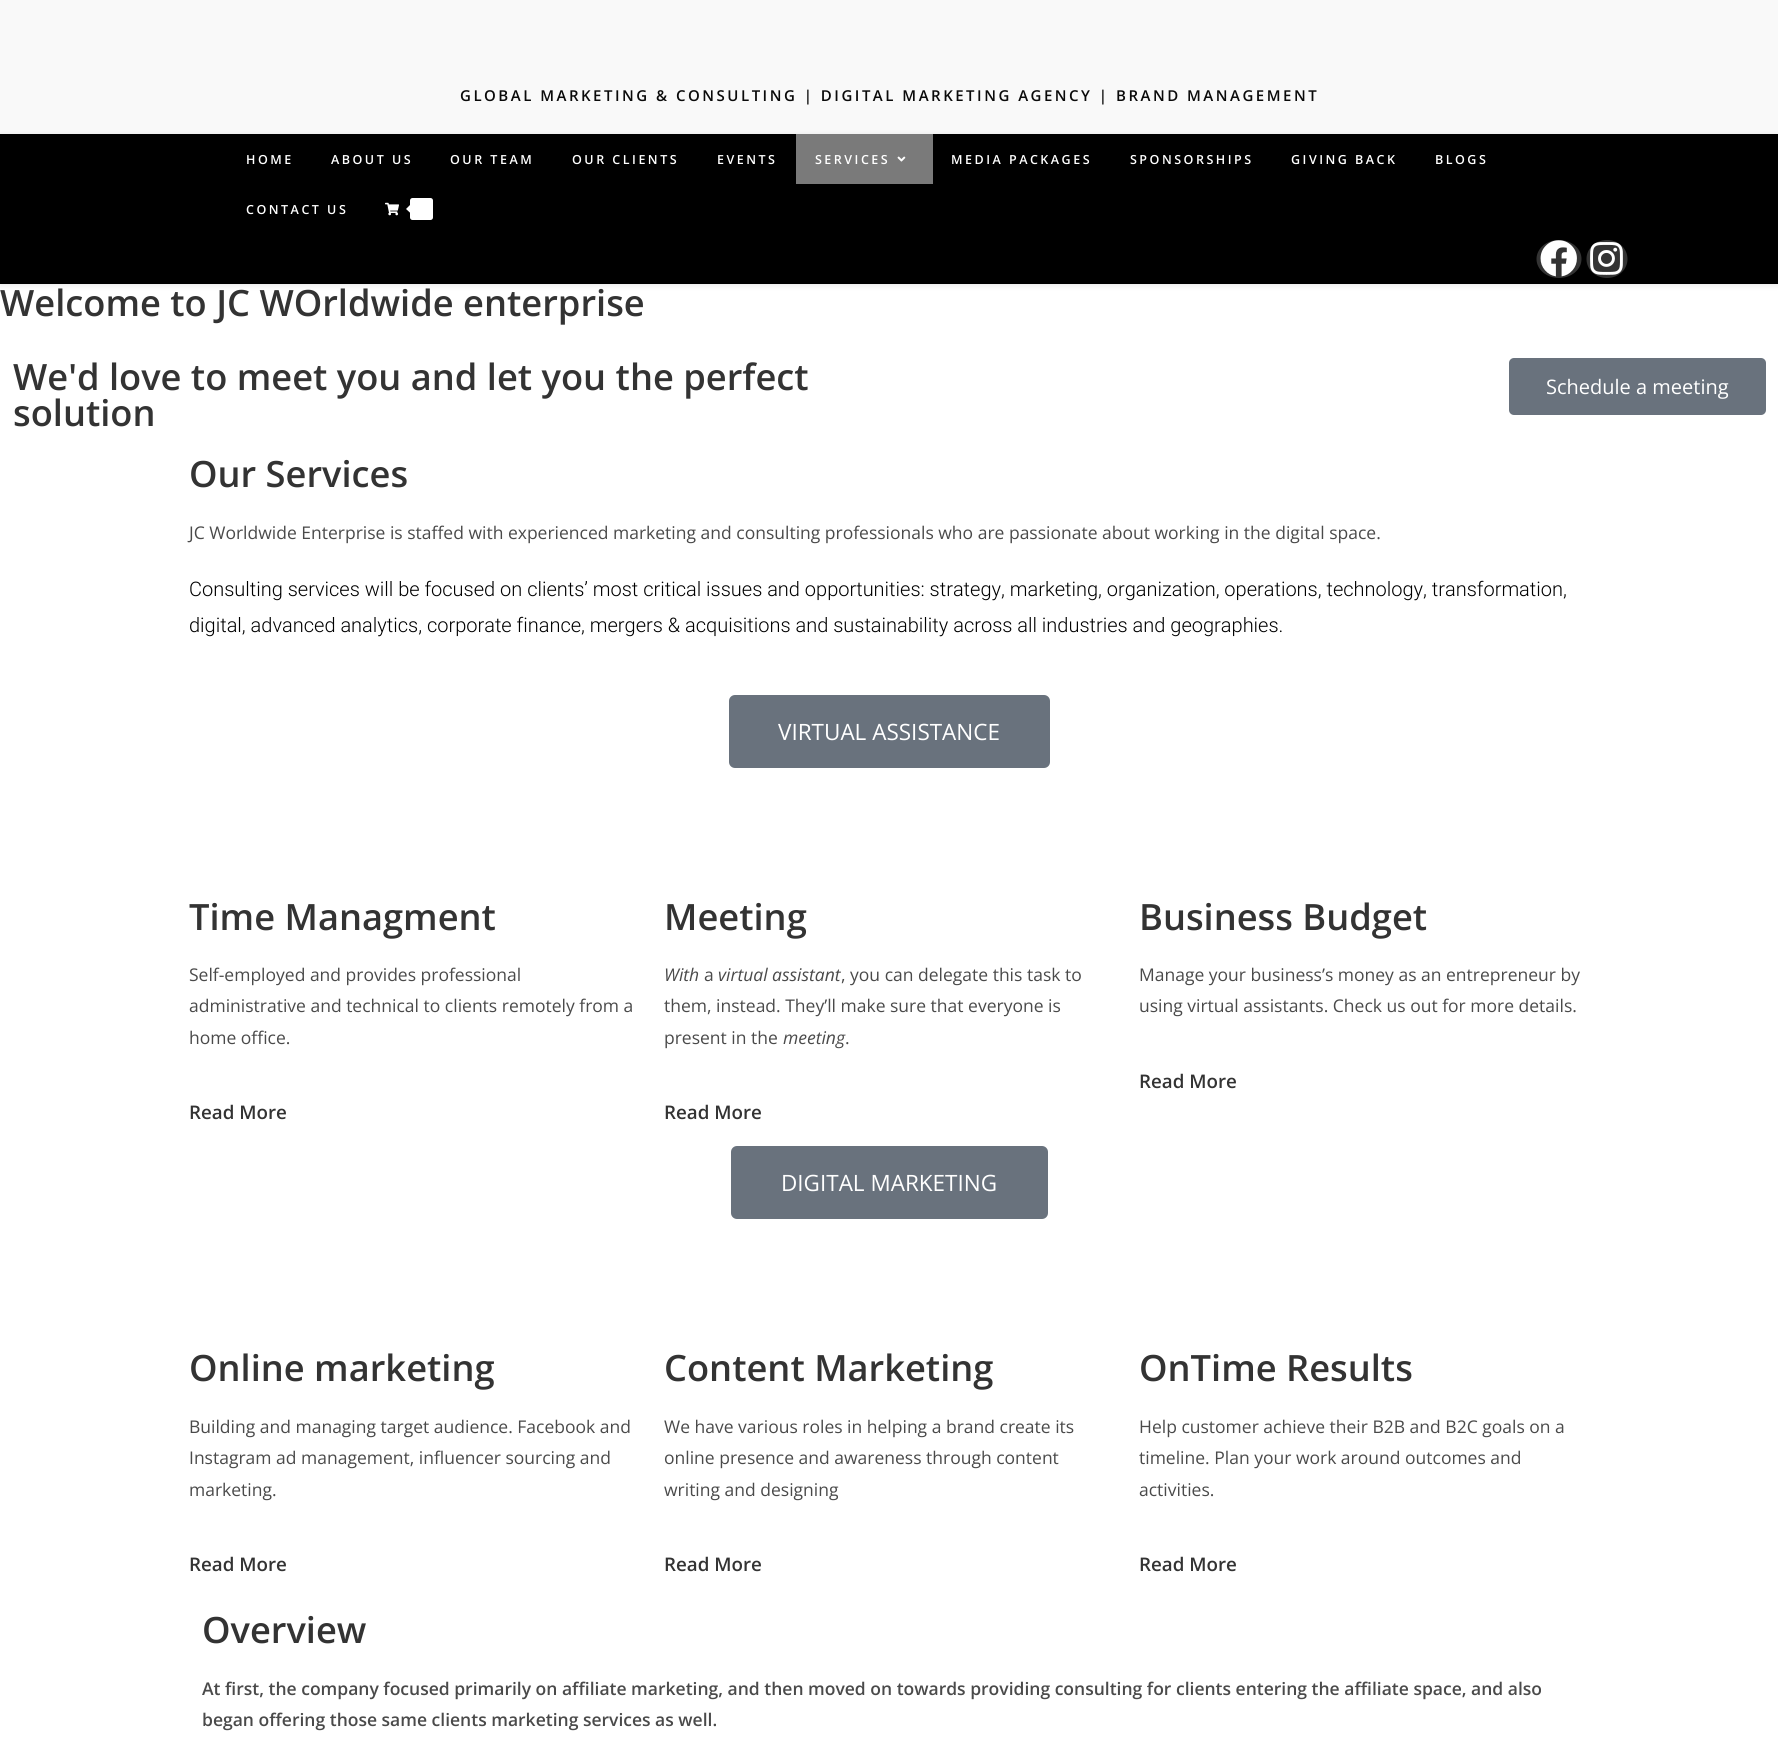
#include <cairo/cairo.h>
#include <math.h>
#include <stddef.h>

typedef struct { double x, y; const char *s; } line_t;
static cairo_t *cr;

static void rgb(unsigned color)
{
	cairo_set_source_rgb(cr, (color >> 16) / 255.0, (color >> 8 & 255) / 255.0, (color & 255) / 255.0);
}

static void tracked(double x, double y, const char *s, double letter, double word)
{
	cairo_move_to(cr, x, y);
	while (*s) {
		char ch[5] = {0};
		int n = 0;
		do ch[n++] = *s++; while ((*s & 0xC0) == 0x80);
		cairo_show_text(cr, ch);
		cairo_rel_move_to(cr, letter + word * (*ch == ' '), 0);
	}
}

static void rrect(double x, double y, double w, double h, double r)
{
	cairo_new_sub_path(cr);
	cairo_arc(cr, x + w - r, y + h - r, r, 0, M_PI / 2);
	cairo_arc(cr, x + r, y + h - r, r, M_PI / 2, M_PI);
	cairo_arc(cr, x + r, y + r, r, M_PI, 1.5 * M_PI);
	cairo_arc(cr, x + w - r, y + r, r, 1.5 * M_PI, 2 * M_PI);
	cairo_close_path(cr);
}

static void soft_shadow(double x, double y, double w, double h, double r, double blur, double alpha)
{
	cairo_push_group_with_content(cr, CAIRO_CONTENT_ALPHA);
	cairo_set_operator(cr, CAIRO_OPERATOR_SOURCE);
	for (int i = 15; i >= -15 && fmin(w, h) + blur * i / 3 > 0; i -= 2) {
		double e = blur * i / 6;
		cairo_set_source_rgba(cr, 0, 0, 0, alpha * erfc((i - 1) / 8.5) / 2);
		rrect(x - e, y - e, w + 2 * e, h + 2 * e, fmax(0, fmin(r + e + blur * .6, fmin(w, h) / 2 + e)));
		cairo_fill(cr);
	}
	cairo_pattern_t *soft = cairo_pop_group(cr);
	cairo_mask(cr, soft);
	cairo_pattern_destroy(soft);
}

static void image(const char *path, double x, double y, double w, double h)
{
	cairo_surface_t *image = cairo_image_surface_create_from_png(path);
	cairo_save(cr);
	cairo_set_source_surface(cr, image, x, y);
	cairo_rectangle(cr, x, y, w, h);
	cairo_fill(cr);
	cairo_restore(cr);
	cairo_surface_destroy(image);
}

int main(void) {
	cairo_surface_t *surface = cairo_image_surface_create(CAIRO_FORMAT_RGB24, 1778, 1749);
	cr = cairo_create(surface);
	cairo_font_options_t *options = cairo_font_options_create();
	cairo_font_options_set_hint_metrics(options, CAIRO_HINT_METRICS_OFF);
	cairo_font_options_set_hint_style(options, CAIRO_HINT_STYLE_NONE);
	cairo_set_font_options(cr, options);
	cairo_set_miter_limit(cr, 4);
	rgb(0xffffff);
	cairo_paint(cr);
	rgb(0xf9f9f9);
	cairo_rectangle(cr, 0, 0, 1778, 134);
	cairo_fill(cr);
	rgb(0x000000);
	soft_shadow(0, 135, 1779, 150, 0, 3, 0.1);
	rgb(0x000000);
	cairo_rectangle(cr, 0, 134, 1778, 150);
	cairo_fill(cr);
	rgb(0x7a7a7a);
	cairo_rectangle(cr, 796, 134, 137, 50);
	cairo_fill(cr);
	image("img/1.png", 897, 156, 9, 6);
	image("img/2.png", 385, 202, 14, 14);
	rgb(0xffffff);
	rrect(410, 198, 23, 22, 2.5);
	cairo_fill(cr);
	cairo_new_path(cr);
	cairo_move_to(cr, 412.5, 202.5);
	cairo_line_to(cr, 412.5, 215);
	cairo_line_to(cr, 406, 209);
	cairo_close_path(cr);
	cairo_fill(cr);
	rgb(0x333333);
	cairo_new_path(cr);
	cairo_move_to(cr, 1559, 240);
	cairo_curve_to(cr, 1571.5, 240, 1581.5, 248.5, 1581.5, 259);
	cairo_curve_to(cr, 1581.5, 269.5, 1571.5, 278, 1559, 278);
	cairo_curve_to(cr, 1546.5, 278, 1536.5, 269.5, 1536.5, 259);
	cairo_curve_to(cr, 1536.5, 248.5, 1546.5, 240, 1559, 240);
	cairo_close_path(cr);
	cairo_fill(cr);
	image("img/3.png", 1540, 240, 37, 37);
	cairo_new_path(cr);
	cairo_move_to(cr, 1607, 240);
	cairo_curve_to(cr, 1618.5, 240, 1627.5, 248.5, 1627.5, 259);
	cairo_curve_to(cr, 1627.5, 269.5, 1618.5, 278, 1607, 278);
	cairo_curve_to(cr, 1595.5, 278, 1586.5, 269.5, 1586.5, 259);
	cairo_curve_to(cr, 1586.5, 248.5, 1595.5, 240, 1607, 240);
	cairo_close_path(cr);
	cairo_fill(cr);
	image("img/4.png", 1590, 242, 33, 33);
	rgb(0x69727d);
	rrect(1509, 358, 257, 57, 5);
	cairo_fill(cr);
	rrect(729, 695, 321, 73, 6);
	cairo_fill(cr);
	rrect(731, 1146, 317, 73, 6);
	cairo_fill(cr);
	cairo_select_font_face(cr, "Open Sans SemiBold", CAIRO_FONT_SLANT_NORMAL, CAIRO_FONT_WEIGHT_NORMAL);
	cairo_set_font_size(cr, 15);
	rgb(0x0a0a0a);
	tracked(460, 101, "GLOBAL MARKETING & CONSULTING | DIGITAL MARKETING AGENCY | BRAND MANAGEMENT", 2.5, 0);
	cairo_set_font_size(cr, 12.5);
	rgb(0xffffff);
	{
		static const line_t items[] = {
			{246, 164, "HOME"},
			{331, 164, "ABOUT US"},
			{450, 164, "OUR TEAM"},
			{572, 164, "OUR CLIENTS"},
			{717, 164, "EVENTS"},
			{815, 164, "SERVICES"},
			{951, 164, "MEDIA PACKAGES"},
			{1130, 164, "SPONSORSHIPS"},
			{1291, 164, "GIVING BACK"},
			{1435, 164, "BLOGS"},
			{246, 214, "CONTACT US"},
		};
		for (size_t i = 0; i < sizeof items / sizeof *items; i++) {
			tracked(items[i].x, items[i].y, items[i].s, 2.5, 0);
		}
	}
	cairo_set_font_size(cr, 36.25);
	rgb(0x333333);
	{
		static const line_t items[] = {
			{0, 316, "Welcome to JC WOrldwide enterprise"},
			{13, 390, "We'd love to meet you and let you the perfect"},
			{13, 426, "solution"},
		};
		for (size_t i = 0; i < sizeof items / sizeof *items; i++) {
			cairo_move_to(cr, items[i].x, items[i].y);
			cairo_show_text(cr, items[i].s);
		}
	}
	cairo_select_font_face(cr, "Open Sans", CAIRO_FONT_SLANT_NORMAL, CAIRO_FONT_WEIGHT_NORMAL);
	cairo_set_font_size(cr, 20);
	rgb(0xffffff);
	cairo_move_to(cr, 1546, 394);
	cairo_show_text(cr, "Schedule a meeting");
	cairo_select_font_face(cr, "Open Sans SemiBold", CAIRO_FONT_SLANT_NORMAL, CAIRO_FONT_WEIGHT_NORMAL);
	cairo_set_font_size(cr, 36.25);
	rgb(0x333333);
	cairo_move_to(cr, 189, 487);
	cairo_show_text(cr, "Our Services");
	cairo_select_font_face(cr, "Open Sans", CAIRO_FONT_SLANT_NORMAL, CAIRO_FONT_WEIGHT_NORMAL);
	cairo_set_font_size(cr, 17.5);
	rgb(0x4a4a4a);
	cairo_move_to(cr, 189, 539);
	cairo_show_text(cr, "JC Worldwide Enterprise is staffed with experienced marketing and consulting professionals who are passionate about working in the digital space.");
	cairo_select_font_face(cr, "Roboto Light", CAIRO_FONT_SLANT_NORMAL, CAIRO_FONT_WEIGHT_NORMAL);
	cairo_set_font_size(cr, 20);
	rgb(0x000000);
	cairo_move_to(cr, 189, 596);
	cairo_show_text(cr, "Consulting services will be focused on clients’ most critical issues and opportunities: strategy, marketing, organization, operations, technology, transformation,");
	cairo_move_to(cr, 189, 632);
	cairo_show_text(cr, "digital, advanced analytics, corporate finance, mergers & acquisitions and sustainability across all industries and geographies.");
	cairo_select_font_face(cr, "Open Sans", CAIRO_FONT_SLANT_NORMAL, CAIRO_FONT_WEIGHT_NORMAL);
	cairo_set_font_size(cr, 22.5);
	rgb(0xffffff);
	cairo_move_to(cr, 778, 740);
	cairo_show_text(cr, "VIRTUAL ASSISTANCE");
	cairo_select_font_face(cr, "Open Sans SemiBold", CAIRO_FONT_SLANT_NORMAL, CAIRO_FONT_WEIGHT_NORMAL);
	cairo_set_font_size(cr, 36.25);
	rgb(0x333333);
	cairo_move_to(cr, 189, 930);
	cairo_show_text(cr, "Time Managment");
	cairo_select_font_face(cr, "Open Sans", CAIRO_FONT_SLANT_NORMAL, CAIRO_FONT_WEIGHT_NORMAL);
	cairo_set_font_size(cr, 17.5);
	rgb(0x4a4a4a);
	{
		static const line_t items[] = {
			{189, 981, "Self-employed and provides professional"},
			{189, 1012, "administrative and technical to clients remotely from a"},
			{189, 1044, "home office."},
		};
		for (size_t i = 0; i < sizeof items / sizeof *items; i++) {
			cairo_move_to(cr, items[i].x, items[i].y);
			cairo_show_text(cr, items[i].s);
		}
	}
	cairo_select_font_face(cr, "Open Sans SemiBold", CAIRO_FONT_SLANT_NORMAL, CAIRO_FONT_WEIGHT_NORMAL);
	cairo_set_font_size(cr, 18.75);
	rgb(0x333333);
	cairo_move_to(cr, 189, 1119);
	cairo_show_text(cr, "Read More");
	cairo_set_font_size(cr, 36.25);
	cairo_move_to(cr, 664, 930);
	cairo_show_text(cr, "Meeting");
	cairo_select_font_face(cr, "Open Sans", CAIRO_FONT_SLANT_ITALIC, CAIRO_FONT_WEIGHT_NORMAL);
	cairo_set_font_size(cr, 17.5);
	rgb(0x4a4a4a);
	cairo_move_to(cr, 664, 981);
	cairo_show_text(cr, "With");
	cairo_select_font_face(cr, "Open Sans", CAIRO_FONT_SLANT_NORMAL, CAIRO_FONT_WEIGHT_NORMAL);
	cairo_move_to(cr, 704, 981);
	cairo_show_text(cr, "a");
	cairo_select_font_face(cr, "Open Sans", CAIRO_FONT_SLANT_ITALIC, CAIRO_FONT_WEIGHT_NORMAL);
	cairo_move_to(cr, 718, 981);
	cairo_show_text(cr, "virtual assistant");
	cairo_select_font_face(cr, "Open Sans", CAIRO_FONT_SLANT_NORMAL, CAIRO_FONT_WEIGHT_NORMAL);
	{
		static const line_t items[] = {
			{841, 981, ", you can delegate this task to"},
			{664, 1012, "them, instead. They’ll make sure that everyone is"},
			{664, 1044, "present in the"},
		};
		for (size_t i = 0; i < sizeof items / sizeof *items; i++) {
			cairo_move_to(cr, items[i].x, items[i].y);
			cairo_show_text(cr, items[i].s);
		}
	}
	cairo_select_font_face(cr, "Open Sans", CAIRO_FONT_SLANT_ITALIC, CAIRO_FONT_WEIGHT_NORMAL);
	cairo_move_to(cr, 783, 1044);
	cairo_show_text(cr, "meeting");
	cairo_select_font_face(cr, "Open Sans", CAIRO_FONT_SLANT_NORMAL, CAIRO_FONT_WEIGHT_NORMAL);
	cairo_move_to(cr, 845, 1044);
	cairo_show_text(cr, ".");
	cairo_select_font_face(cr, "Open Sans SemiBold", CAIRO_FONT_SLANT_NORMAL, CAIRO_FONT_WEIGHT_NORMAL);
	cairo_set_font_size(cr, 18.75);
	rgb(0x333333);
	cairo_move_to(cr, 664, 1119);
	cairo_show_text(cr, "Read More");
	cairo_set_font_size(cr, 36.25);
	cairo_move_to(cr, 1139, 930);
	cairo_show_text(cr, "Business Budget");
	cairo_select_font_face(cr, "Open Sans", CAIRO_FONT_SLANT_NORMAL, CAIRO_FONT_WEIGHT_NORMAL);
	cairo_set_font_size(cr, 17.5);
	rgb(0x4a4a4a);
	cairo_move_to(cr, 1139, 981);
	cairo_show_text(cr, "Manage your business’s money as an entrepreneur by");
	cairo_move_to(cr, 1139, 1012);
	cairo_show_text(cr, "using virtual assistants. Check us out for more details.");
	cairo_select_font_face(cr, "Open Sans SemiBold", CAIRO_FONT_SLANT_NORMAL, CAIRO_FONT_WEIGHT_NORMAL);
	cairo_set_font_size(cr, 18.75);
	rgb(0x333333);
	cairo_move_to(cr, 1139, 1088);
	cairo_show_text(cr, "Read More");
	cairo_select_font_face(cr, "Open Sans", CAIRO_FONT_SLANT_NORMAL, CAIRO_FONT_WEIGHT_NORMAL);
	cairo_set_font_size(cr, 22.5);
	rgb(0xffffff);
	cairo_move_to(cr, 781, 1191);
	cairo_show_text(cr, "DIGITAL MARKETING");
	cairo_select_font_face(cr, "Open Sans SemiBold", CAIRO_FONT_SLANT_NORMAL, CAIRO_FONT_WEIGHT_NORMAL);
	cairo_set_font_size(cr, 36.25);
	rgb(0x333333);
	cairo_move_to(cr, 189, 1381);
	cairo_show_text(cr, "Online marketing");
	cairo_select_font_face(cr, "Open Sans", CAIRO_FONT_SLANT_NORMAL, CAIRO_FONT_WEIGHT_NORMAL);
	cairo_set_font_size(cr, 17.5);
	rgb(0x4a4a4a);
	{
		static const line_t items[] = {
			{189, 1433, "Building and managing target audience. Facebook and"},
			{189, 1464, "Instagram ad management, influencer sourcing and"},
			{189, 1496, "marketing."},
		};
		for (size_t i = 0; i < sizeof items / sizeof *items; i++) {
			cairo_move_to(cr, items[i].x, items[i].y);
			cairo_show_text(cr, items[i].s);
		}
	}
	cairo_select_font_face(cr, "Open Sans SemiBold", CAIRO_FONT_SLANT_NORMAL, CAIRO_FONT_WEIGHT_NORMAL);
	cairo_set_font_size(cr, 18.75);
	rgb(0x333333);
	cairo_move_to(cr, 189, 1571);
	cairo_show_text(cr, "Read More");
	cairo_set_font_size(cr, 36.25);
	cairo_move_to(cr, 664, 1381);
	cairo_show_text(cr, "Content Marketing");
	cairo_select_font_face(cr, "Open Sans", CAIRO_FONT_SLANT_NORMAL, CAIRO_FONT_WEIGHT_NORMAL);
	cairo_set_font_size(cr, 17.5);
	rgb(0x4a4a4a);
	{
		static const line_t items[] = {
			{664, 1433, "We have various roles in helping a brand create its"},
			{664, 1464, "online presence and awareness through content"},
			{664, 1496, "writing and designing"},
		};
		for (size_t i = 0; i < sizeof items / sizeof *items; i++) {
			cairo_move_to(cr, items[i].x, items[i].y);
			cairo_show_text(cr, items[i].s);
		}
	}
	cairo_select_font_face(cr, "Open Sans SemiBold", CAIRO_FONT_SLANT_NORMAL, CAIRO_FONT_WEIGHT_NORMAL);
	cairo_set_font_size(cr, 18.75);
	rgb(0x333333);
	cairo_move_to(cr, 664, 1571);
	cairo_show_text(cr, "Read More");
	cairo_set_font_size(cr, 36.25);
	cairo_move_to(cr, 1139, 1381);
	cairo_show_text(cr, "OnTime Results");
	cairo_select_font_face(cr, "Open Sans", CAIRO_FONT_SLANT_NORMAL, CAIRO_FONT_WEIGHT_NORMAL);
	cairo_set_font_size(cr, 17.5);
	rgb(0x4a4a4a);
	{
		static const line_t items[] = {
			{1139, 1433, "Help customer achieve their B2B and B2C goals on a"},
			{1139, 1464, "timeline. Plan your work around outcomes and"},
			{1139, 1496, "activities."},
		};
		for (size_t i = 0; i < sizeof items / sizeof *items; i++) {
			cairo_move_to(cr, items[i].x, items[i].y);
			cairo_show_text(cr, items[i].s);
		}
	}
	cairo_select_font_face(cr, "Open Sans SemiBold", CAIRO_FONT_SLANT_NORMAL, CAIRO_FONT_WEIGHT_NORMAL);
	cairo_set_font_size(cr, 18.75);
	rgb(0x333333);
	cairo_move_to(cr, 1139, 1571);
	cairo_show_text(cr, "Read More");
	cairo_set_font_size(cr, 36.25);
	cairo_move_to(cr, 202, 1643);
	cairo_show_text(cr, "Overview");
	cairo_set_font_size(cr, 17.5);
	rgb(0x4a4a4a);
	cairo_move_to(cr, 202, 1695);
	cairo_show_text(cr, "At first, the company focused primarily on affiliate marketing, and then moved on towards providing consulting for clients entering the affiliate space, and also");
	cairo_move_to(cr, 202, 1726);
	cairo_show_text(cr, "began offering those same clients marketing services as well.");
	cairo_surface_write_to_png(surface, "page.png");
	cairo_font_options_destroy(options);
	cairo_destroy(cr);
	cairo_surface_destroy(surface);
	return 0;
}
